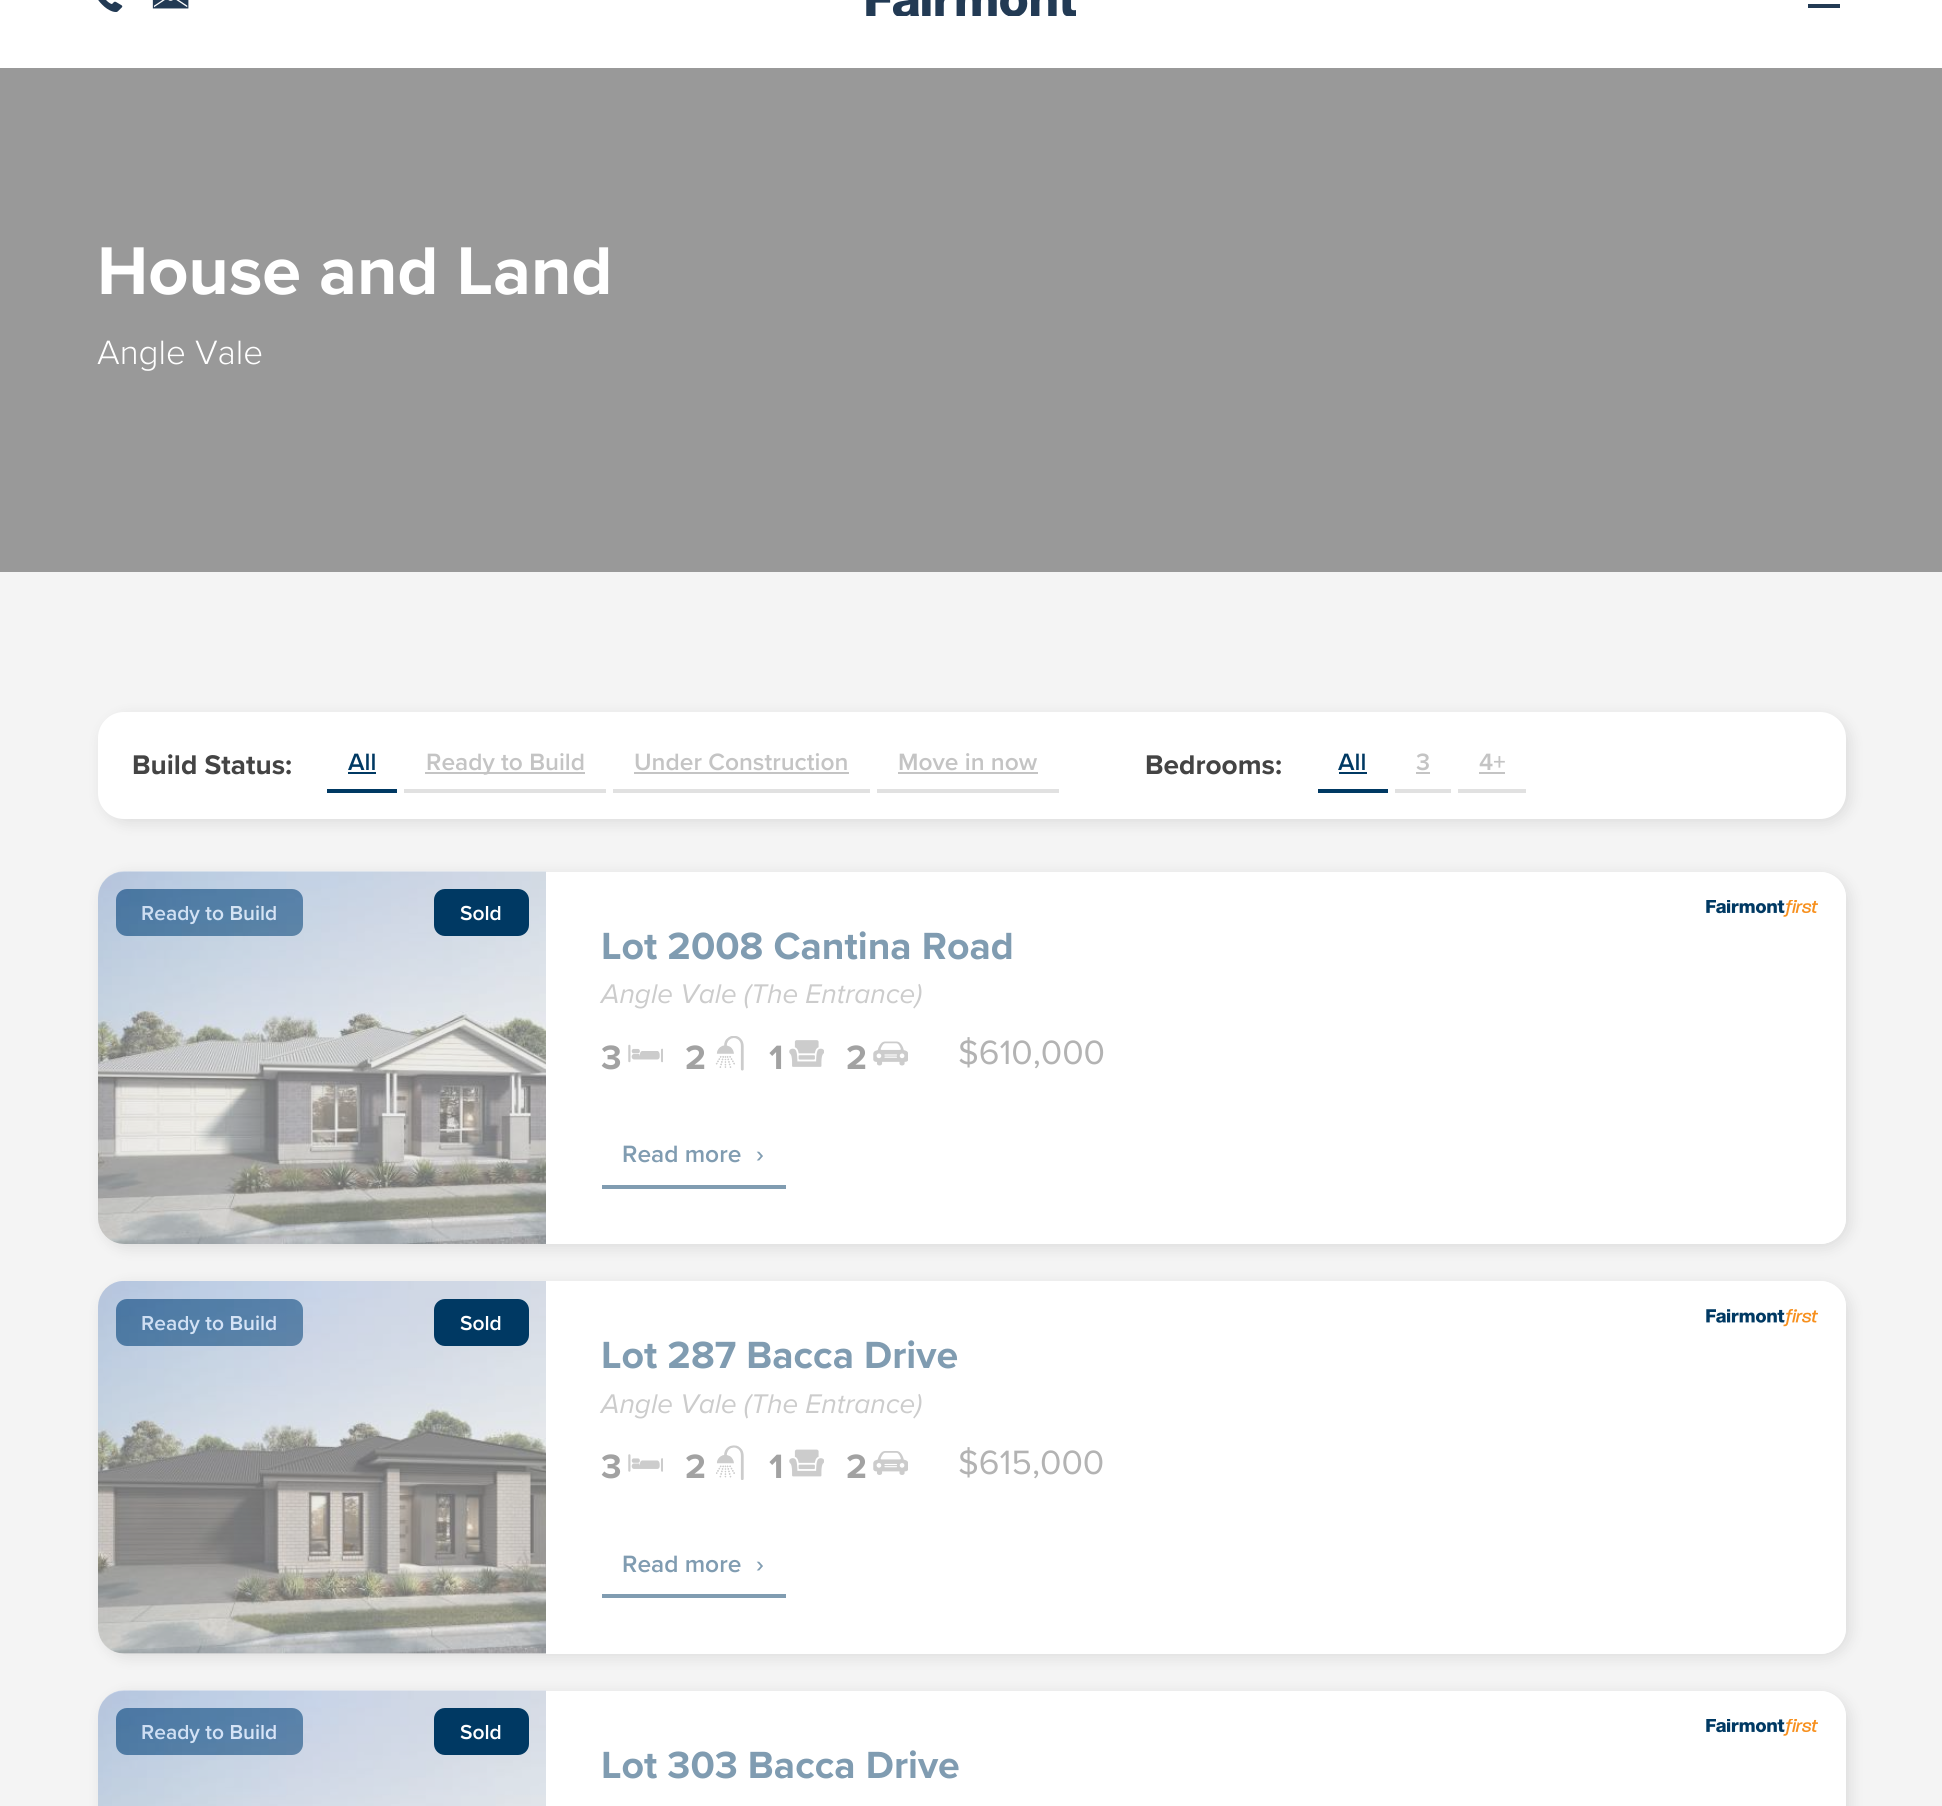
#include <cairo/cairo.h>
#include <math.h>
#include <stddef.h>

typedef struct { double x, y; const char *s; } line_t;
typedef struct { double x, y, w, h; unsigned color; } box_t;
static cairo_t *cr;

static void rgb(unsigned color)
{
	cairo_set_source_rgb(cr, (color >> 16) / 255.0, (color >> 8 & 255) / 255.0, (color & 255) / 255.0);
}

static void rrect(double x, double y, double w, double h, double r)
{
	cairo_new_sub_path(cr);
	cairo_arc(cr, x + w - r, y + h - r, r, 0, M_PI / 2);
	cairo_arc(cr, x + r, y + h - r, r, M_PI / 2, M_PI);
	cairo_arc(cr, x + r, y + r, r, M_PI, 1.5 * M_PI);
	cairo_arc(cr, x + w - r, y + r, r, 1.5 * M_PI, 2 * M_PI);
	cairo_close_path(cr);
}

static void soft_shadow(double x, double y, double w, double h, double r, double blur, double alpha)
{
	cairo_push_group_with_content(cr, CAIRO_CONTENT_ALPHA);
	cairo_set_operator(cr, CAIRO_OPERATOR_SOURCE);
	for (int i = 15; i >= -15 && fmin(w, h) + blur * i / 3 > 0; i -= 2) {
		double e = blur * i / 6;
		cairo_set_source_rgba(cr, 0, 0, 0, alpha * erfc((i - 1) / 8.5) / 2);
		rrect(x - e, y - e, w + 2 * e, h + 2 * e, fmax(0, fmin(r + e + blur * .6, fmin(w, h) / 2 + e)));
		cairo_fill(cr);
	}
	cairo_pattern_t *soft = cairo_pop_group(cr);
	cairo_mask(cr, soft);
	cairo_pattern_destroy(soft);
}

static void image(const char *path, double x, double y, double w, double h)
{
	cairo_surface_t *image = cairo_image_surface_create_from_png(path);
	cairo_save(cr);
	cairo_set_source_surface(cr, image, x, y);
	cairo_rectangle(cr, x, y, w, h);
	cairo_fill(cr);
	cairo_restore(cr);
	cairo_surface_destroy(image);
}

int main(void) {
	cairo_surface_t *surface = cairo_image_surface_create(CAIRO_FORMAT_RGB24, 1942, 1806);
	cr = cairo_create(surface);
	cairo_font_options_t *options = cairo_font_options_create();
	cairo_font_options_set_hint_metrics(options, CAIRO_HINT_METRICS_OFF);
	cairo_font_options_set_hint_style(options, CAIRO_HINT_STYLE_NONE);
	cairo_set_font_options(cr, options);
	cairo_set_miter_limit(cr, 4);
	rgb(0xffffff);
	cairo_paint(cr);
	image("img/1.png", 98, 0, 25, 12);
	image("img/2.png", 152, 0, 37, 9);
	image("img/3.png", 866, 0, 210, 16);
	{
		static const box_t items[] = {
			{1808, 4, 32, 4, 0x223a54},
			{0, 68, 1942, 504, 0x999999},
			{0, 572, 1942, 1234, 0xf4f4f4},
		};
		for (size_t i = 0; i < sizeof items / sizeof *items; i++) {
			rgb(items[i].color);
			cairo_rectangle(cr, items[i].x, items[i].y, items[i].w, items[i].h);
			cairo_fill(cr);
		}
	}
	rgb(0x000000);
	soft_shadow(102, 716, 1748, 107, 26, 7, 0.1);
	rgb(0xffffff);
	rrect(98, 712, 1748, 107, 26);
	cairo_fill(cr);
	{
		static const box_t items[] = {
			{327, 789, 70, 4, 0x003963},
			{348, 772, 28, 2, 0x003963},
			{404, 789, 202, 4, 0xe1e1e1},
			{425, 772, 160, 2, 0xc4c4c4},
			{613, 789, 257, 4, 0xe1e1e1},
			{634, 772, 215, 2, 0xc4c4c4},
			{877, 789, 182, 4, 0xe1e1e1},
			{898, 772, 140, 2, 0xc4c4c4},
			{1318, 789, 70, 4, 0x003963},
			{1339, 772, 28, 2, 0x003963},
			{1395, 789, 56, 4, 0xe1e1e1},
			{1416, 772, 14, 2, 0xc4c4c4},
			{1458, 789, 68, 4, 0xe1e1e1},
			{1479, 772, 26, 2, 0xc4c4c4},
		};
		for (size_t i = 0; i < sizeof items / sizeof *items; i++) {
			rgb(items[i].color);
			cairo_rectangle(cr, items[i].x, items[i].y, items[i].w, items[i].h);
			cairo_fill(cr);
		}
	}
	rgb(0x000000);
	soft_shadow(102, 875, 1748, 373, 26, 7, 0.1);
	rgb(0xffffff);
	rrect(98, 872, 1748, 372, 26);
	cairo_fill(cr);
	rgb(0xdddddd);
	cairo_new_path(cr);
	cairo_move_to(cr, 124, 872);
	cairo_line_to(cr, 546, 872);
	cairo_line_to(cr, 546, 1244);
	cairo_line_to(cr, 124, 1244);
	cairo_curve_to(cr, 109.5, 1244, 98, 1232.5, 98, 1218);
	cairo_line_to(cr, 98, 898);
	cairo_curve_to(cr, 98, 883.5, 109.5, 872, 124, 872);
	cairo_close_path(cr);
	cairo_fill(cr);
	rgb(0x003963);
	rrect(116, 889, 187, 47, 11);
	cairo_fill(cr);
	rgb(0xffffff);
	cairo_new_path(cr);
	cairo_move_to(cr, 1678, 872);
	cairo_line_to(cr, 1820, 872);
	cairo_curve_to(cr, 1834.5, 872, 1846, 883.5, 1846, 898);
	cairo_line_to(cr, 1846, 1218);
	cairo_curve_to(cr, 1846, 1232.5, 1834.5, 1244, 1820, 1244);
	cairo_line_to(cr, 1678, 1244);
	cairo_close_path(cr);
	cairo_fill(cr);
	image("img/5.png", 1706, 900, 112, 17);
	image("img/6.png", 628, 1044, 35, 19);
	image("img/7.png", 715, 1036, 29, 35);
	image("img/8.png", 789, 1040, 35, 27);
	image("img/9.png", 873, 1041, 35, 25);
	rgb(0x809cb1);
	cairo_rectangle(cr, 602, 1185, 184, 4);
	cairo_fill(cr);
	rgb(0x000000);
	soft_shadow(102, 1285, 1748, 372, 26, 7, 0.1);
	rgb(0xffffff);
	rrect(98, 1281, 1748, 373, 26);
	cairo_fill(cr);
	rgb(0xdddddd);
	cairo_new_path(cr);
	cairo_move_to(cr, 124, 1281);
	cairo_line_to(cr, 546, 1281);
	cairo_line_to(cr, 546, 1654);
	cairo_line_to(cr, 124, 1654);
	cairo_curve_to(cr, 109.5, 1654, 98, 1642.5, 98, 1628);
	cairo_line_to(cr, 98, 1307);
	cairo_curve_to(cr, 98, 1292.5, 109.5, 1281, 124, 1281);
	cairo_close_path(cr);
	cairo_fill(cr);
	rgb(0x003963);
	rrect(116, 1299, 187, 47, 11);
	cairo_fill(cr);
	rgb(0xffffff);
	cairo_new_path(cr);
	cairo_move_to(cr, 1678, 1281);
	cairo_line_to(cr, 1820, 1281);
	cairo_curve_to(cr, 1834.5, 1281, 1846, 1292.5, 1846, 1307);
	cairo_line_to(cr, 1846, 1628);
	cairo_curve_to(cr, 1846, 1642.5, 1834.5, 1654, 1820, 1654);
	cairo_line_to(cr, 1678, 1654);
	cairo_close_path(cr);
	cairo_fill(cr);
	image("img/11.png", 1706, 1309, 112, 18);
	image("img/12.png", 628, 1454, 35, 18);
	image("img/13.png", 716, 1445, 28, 35);
	image("img/14.png", 789, 1449, 35, 28);
	image("img/15.png", 873, 1451, 35, 24);
	rgb(0x809cb1);
	cairo_rectangle(cr, 602, 1594, 184, 4);
	cairo_fill(cr);
	rgb(0x000000);
	soft_shadow(102, 1694, 1748, 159, 26, 7, 0.1);
	rgb(0xffffff);
	rrect(98, 1691, 1748, 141, 26);
	cairo_fill(cr);
	rgb(0xdddddd);
	cairo_new_path(cr);
	cairo_move_to(cr, 124, 1691);
	cairo_line_to(cr, 546, 1691);
	cairo_line_to(cr, 546, 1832);
	cairo_line_to(cr, 124, 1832);
	cairo_curve_to(cr, 109.5, 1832, 98, 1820.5, 98, 1806);
	cairo_line_to(cr, 98, 1717);
	cairo_curve_to(cr, 98, 1702.5, 109.5, 1691, 124, 1691);
	cairo_close_path(cr);
	cairo_fill(cr);
	rgb(0x003963);
	rrect(116, 1708, 187, 47, 11);
	cairo_fill(cr);
	rgb(0xffffff);
	cairo_new_path(cr);
	cairo_move_to(cr, 1678, 1691);
	cairo_line_to(cr, 1820, 1691);
	cairo_curve_to(cr, 1834.5, 1691, 1846, 1702.5, 1846, 1717);
	cairo_line_to(cr, 1846, 1806);
	cairo_curve_to(cr, 1846, 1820.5, 1834.5, 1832, 1820, 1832);
	cairo_line_to(cr, 1678, 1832);
	cairo_close_path(cr);
	cairo_fill(cr);
	image("img/5.png", 1706, 1719, 112, 17);
	cairo_select_font_face(cr, "Proxima Nova", CAIRO_FONT_SLANT_NORMAL, CAIRO_FONT_WEIGHT_BOLD);
	cairo_set_font_size(cr, 70);
	cairo_move_to(cr, 97, 294);
	cairo_show_text(cr, "House and Land");
	cairo_select_font_face(cr, "Proxima Nova Light", CAIRO_FONT_SLANT_NORMAL, CAIRO_FONT_WEIGHT_NORMAL);
	cairo_set_font_size(cr, 35);
	cairo_move_to(cr, 97, 364);
	cairo_show_text(cr, "Angle Vale");
	cairo_select_font_face(cr, "Proxima Nova", CAIRO_FONT_SLANT_NORMAL, CAIRO_FONT_WEIGHT_BOLD);
	cairo_set_font_size(cr, 28);
	rgb(0x444444);
	cairo_move_to(cr, 132, 774);
	cairo_show_text(cr, "Build Status:");
	cairo_select_font_face(cr, "Proxima Nova SemiBold", CAIRO_FONT_SLANT_NORMAL, CAIRO_FONT_WEIGHT_NORMAL);
	cairo_set_font_size(cr, 24.5);
	rgb(0x003963);
	cairo_move_to(cr, 348, 770);
	cairo_show_text(cr, "All");
	rgb(0xc4c4c4);
	{
		static const line_t items[] = {
			{426, 770, "Ready to Build"},
			{634, 770, "Under Construction"},
			{898, 770, "Move in now"},
		};
		for (size_t i = 0; i < sizeof items / sizeof *items; i++) {
			cairo_move_to(cr, items[i].x, items[i].y);
			cairo_show_text(cr, items[i].s);
		}
	}
	cairo_select_font_face(cr, "Proxima Nova", CAIRO_FONT_SLANT_NORMAL, CAIRO_FONT_WEIGHT_BOLD);
	cairo_set_font_size(cr, 28);
	rgb(0x444444);
	cairo_move_to(cr, 1145, 774);
	cairo_show_text(cr, "Bedrooms:");
	cairo_select_font_face(cr, "Proxima Nova SemiBold", CAIRO_FONT_SLANT_NORMAL, CAIRO_FONT_WEIGHT_NORMAL);
	cairo_set_font_size(cr, 24.5);
	rgb(0x003963);
	cairo_move_to(cr, 1338, 770);
	cairo_show_text(cr, "All");
	rgb(0xc4c4c4);
	cairo_move_to(cr, 1416, 770);
	cairo_show_text(cr, "3");
	cairo_move_to(cr, 1479, 770);
	cairo_show_text(cr, "4+");
	cairo_set_font_size(cr, 21);
	rgb(0xffffff);
	cairo_move_to(cr, 141, 920);
	cairo_show_text(cr, "Ready to Build");
	image("img/4.png", 98, 871, 448, 373);
	rgb(0x003963);
	rrect(434, 889, 95, 47, 11);
	cairo_fill(cr);
	rgb(0xffffff);
	cairo_move_to(cr, 460, 920);
	cairo_show_text(cr, "Sold");
	cairo_select_font_face(cr, "Proxima Nova", CAIRO_FONT_SLANT_NORMAL, CAIRO_FONT_WEIGHT_BOLD);
	cairo_set_font_size(cr, 39.25);
	rgb(0x809cb1);
	cairo_move_to(cr, 601, 959);
	cairo_show_text(cr, "Lot 2008 Cantina Road");
	cairo_select_font_face(cr, "Proxima Nova", CAIRO_FONT_SLANT_ITALIC, CAIRO_FONT_WEIGHT_NORMAL);
	cairo_set_font_size(cr, 28);
	rgb(0xcccccc);
	cairo_move_to(cr, 601, 1003);
	cairo_show_text(cr, "Angle Vale (The Entrance)");
	cairo_select_font_face(cr, "Proxima Nova", CAIRO_FONT_SLANT_NORMAL, CAIRO_FONT_WEIGHT_BOLD);
	cairo_set_font_size(cr, 35);
	rgb(0xa2a2a2);
	{
		static const line_t items[] = {
			{601, 1069, "3"},
			{685, 1069, "2"},
			{769, 1069, "1"},
			{846, 1069, "2"},
		};
		for (size_t i = 0; i < sizeof items / sizeof *items; i++) {
			cairo_move_to(cr, items[i].x, items[i].y);
			cairo_show_text(cr, items[i].s);
		}
	}
	cairo_select_font_face(cr, "Proxima Nova", CAIRO_FONT_SLANT_NORMAL, CAIRO_FONT_WEIGHT_NORMAL);
	rgb(0xb3b3b3);
	cairo_move_to(cr, 958, 1064);
	cairo_show_text(cr, "$610,000");
	cairo_select_font_face(cr, "Proxima Nova SemiBold", CAIRO_FONT_SLANT_NORMAL, CAIRO_FONT_WEIGHT_NORMAL);
	cairo_set_font_size(cr, 24.5);
	rgb(0x809cb1);
	cairo_move_to(cr, 622, 1162);
	cairo_show_text(cr, "Read more");
	cairo_move_to(cr, 756, 1162);
	cairo_show_text(cr, "›");
	cairo_set_font_size(cr, 21);
	rgb(0xffffff);
	cairo_move_to(cr, 141, 1330);
	cairo_show_text(cr, "Ready to Build");
	image("img/10.png", 98, 1281, 448, 373);
	rgb(0x003963);
	rrect(434, 1299, 95, 47, 11);
	cairo_fill(cr);
	rgb(0xffffff);
	cairo_move_to(cr, 460, 1330);
	cairo_show_text(cr, "Sold");
	cairo_select_font_face(cr, "Proxima Nova", CAIRO_FONT_SLANT_NORMAL, CAIRO_FONT_WEIGHT_BOLD);
	cairo_set_font_size(cr, 39.25);
	rgb(0x809cb1);
	cairo_move_to(cr, 601, 1368);
	cairo_show_text(cr, "Lot 287 Bacca Drive");
	cairo_select_font_face(cr, "Proxima Nova", CAIRO_FONT_SLANT_ITALIC, CAIRO_FONT_WEIGHT_NORMAL);
	cairo_set_font_size(cr, 28);
	rgb(0xcccccc);
	cairo_move_to(cr, 601, 1413);
	cairo_show_text(cr, "Angle Vale (The Entrance)");
	cairo_select_font_face(cr, "Proxima Nova", CAIRO_FONT_SLANT_NORMAL, CAIRO_FONT_WEIGHT_BOLD);
	cairo_set_font_size(cr, 35);
	rgb(0xa2a2a2);
	{
		static const line_t items[] = {
			{601, 1478, "3"},
			{685, 1478, "2"},
			{769, 1478, "1"},
			{846, 1478, "2"},
		};
		for (size_t i = 0; i < sizeof items / sizeof *items; i++) {
			cairo_move_to(cr, items[i].x, items[i].y);
			cairo_show_text(cr, items[i].s);
		}
	}
	cairo_select_font_face(cr, "Proxima Nova", CAIRO_FONT_SLANT_NORMAL, CAIRO_FONT_WEIGHT_NORMAL);
	rgb(0xb3b3b3);
	cairo_move_to(cr, 958, 1474);
	cairo_show_text(cr, "$615,000");
	cairo_select_font_face(cr, "Proxima Nova SemiBold", CAIRO_FONT_SLANT_NORMAL, CAIRO_FONT_WEIGHT_NORMAL);
	cairo_set_font_size(cr, 24.5);
	rgb(0x809cb1);
	cairo_move_to(cr, 622, 1572);
	cairo_show_text(cr, "Read more");
	cairo_move_to(cr, 756, 1572);
	cairo_show_text(cr, "›");
	cairo_set_font_size(cr, 21);
	rgb(0xffffff);
	cairo_move_to(cr, 141, 1739);
	cairo_show_text(cr, "Ready to Build");
	image("img/16.png", 98, 1690, 448, 116);
	rgb(0x003963);
	rrect(434, 1708, 95, 47, 11);
	cairo_fill(cr);
	rgb(0xffffff);
	cairo_move_to(cr, 460, 1739);
	cairo_show_text(cr, "Sold");
	cairo_select_font_face(cr, "Proxima Nova", CAIRO_FONT_SLANT_NORMAL, CAIRO_FONT_WEIGHT_BOLD);
	cairo_set_font_size(cr, 39.25);
	rgb(0x809cb1);
	cairo_move_to(cr, 601, 1778);
	cairo_show_text(cr, "Lot 303 Bacca Drive");
	cairo_surface_write_to_png(surface, "page.png");
	cairo_font_options_destroy(options);
	cairo_destroy(cr);
	cairo_surface_destroy(surface);
	return 0;
}
